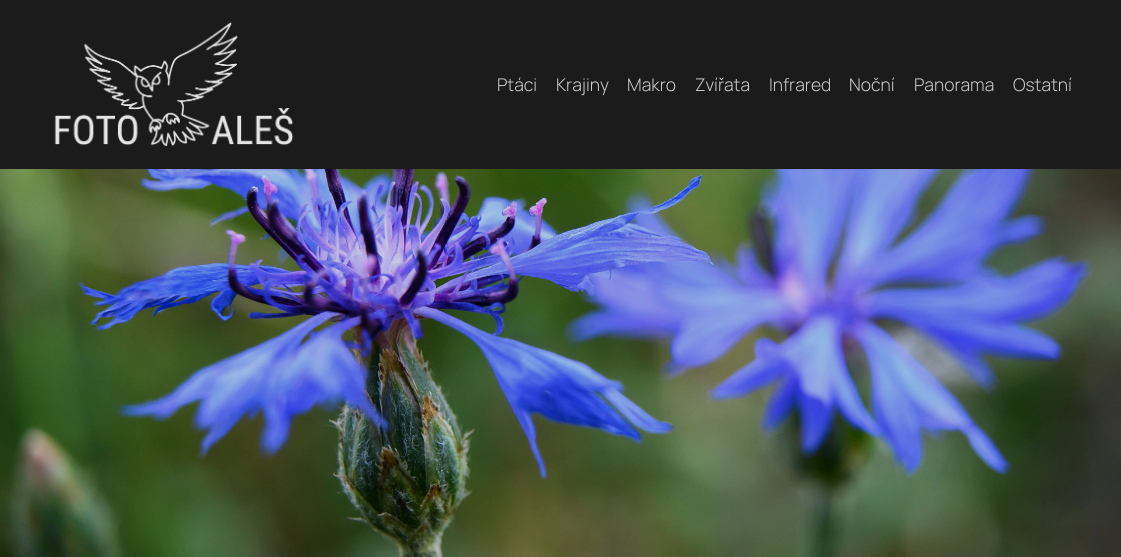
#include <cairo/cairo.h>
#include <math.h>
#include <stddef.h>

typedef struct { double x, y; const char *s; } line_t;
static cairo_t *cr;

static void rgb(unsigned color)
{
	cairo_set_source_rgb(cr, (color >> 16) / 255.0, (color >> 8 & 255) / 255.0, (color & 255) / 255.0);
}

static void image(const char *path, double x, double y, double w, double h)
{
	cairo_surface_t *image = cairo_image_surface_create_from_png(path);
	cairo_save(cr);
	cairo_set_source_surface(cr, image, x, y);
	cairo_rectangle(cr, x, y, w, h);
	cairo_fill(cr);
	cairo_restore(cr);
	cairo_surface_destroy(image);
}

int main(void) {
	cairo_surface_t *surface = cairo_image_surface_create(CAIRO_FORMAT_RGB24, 1121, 557);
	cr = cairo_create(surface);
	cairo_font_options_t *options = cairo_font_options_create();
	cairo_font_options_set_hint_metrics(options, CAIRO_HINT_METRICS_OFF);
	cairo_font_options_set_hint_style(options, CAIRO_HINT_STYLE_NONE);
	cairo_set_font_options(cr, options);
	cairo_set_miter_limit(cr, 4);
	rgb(0x1b1b1b);
	cairo_paint(cr);
	image("img/1.png", 54, 22, 240, 125);
	image("img/2.png", 0, 169, 1121, 388);
	cairo_select_font_face(cr, "Manrope Light", CAIRO_FONT_SLANT_NORMAL, CAIRO_FONT_WEIGHT_NORMAL);
	cairo_set_font_size(cr, 17.5);
	rgb(0xcbcbcb);
	{
		static const line_t items[] = {
			{497, 91, "Ptáci"},
			{556, 91, "Krajiny"},
			{627, 91, "Makro"},
			{695, 91, "Zvířata"},
			{769, 91, "Infrared"},
			{849, 91, "Noční"},
			{914, 91, "Panorama"},
			{1013, 91, "Ostatní"},
		};
		for (size_t i = 0; i < sizeof items / sizeof *items; i++) {
			cairo_move_to(cr, items[i].x, items[i].y);
			cairo_show_text(cr, items[i].s);
		}
	}
	cairo_surface_write_to_png(surface, "page.png");
	cairo_font_options_destroy(options);
	cairo_destroy(cr);
	cairo_surface_destroy(surface);
	return 0;
}
